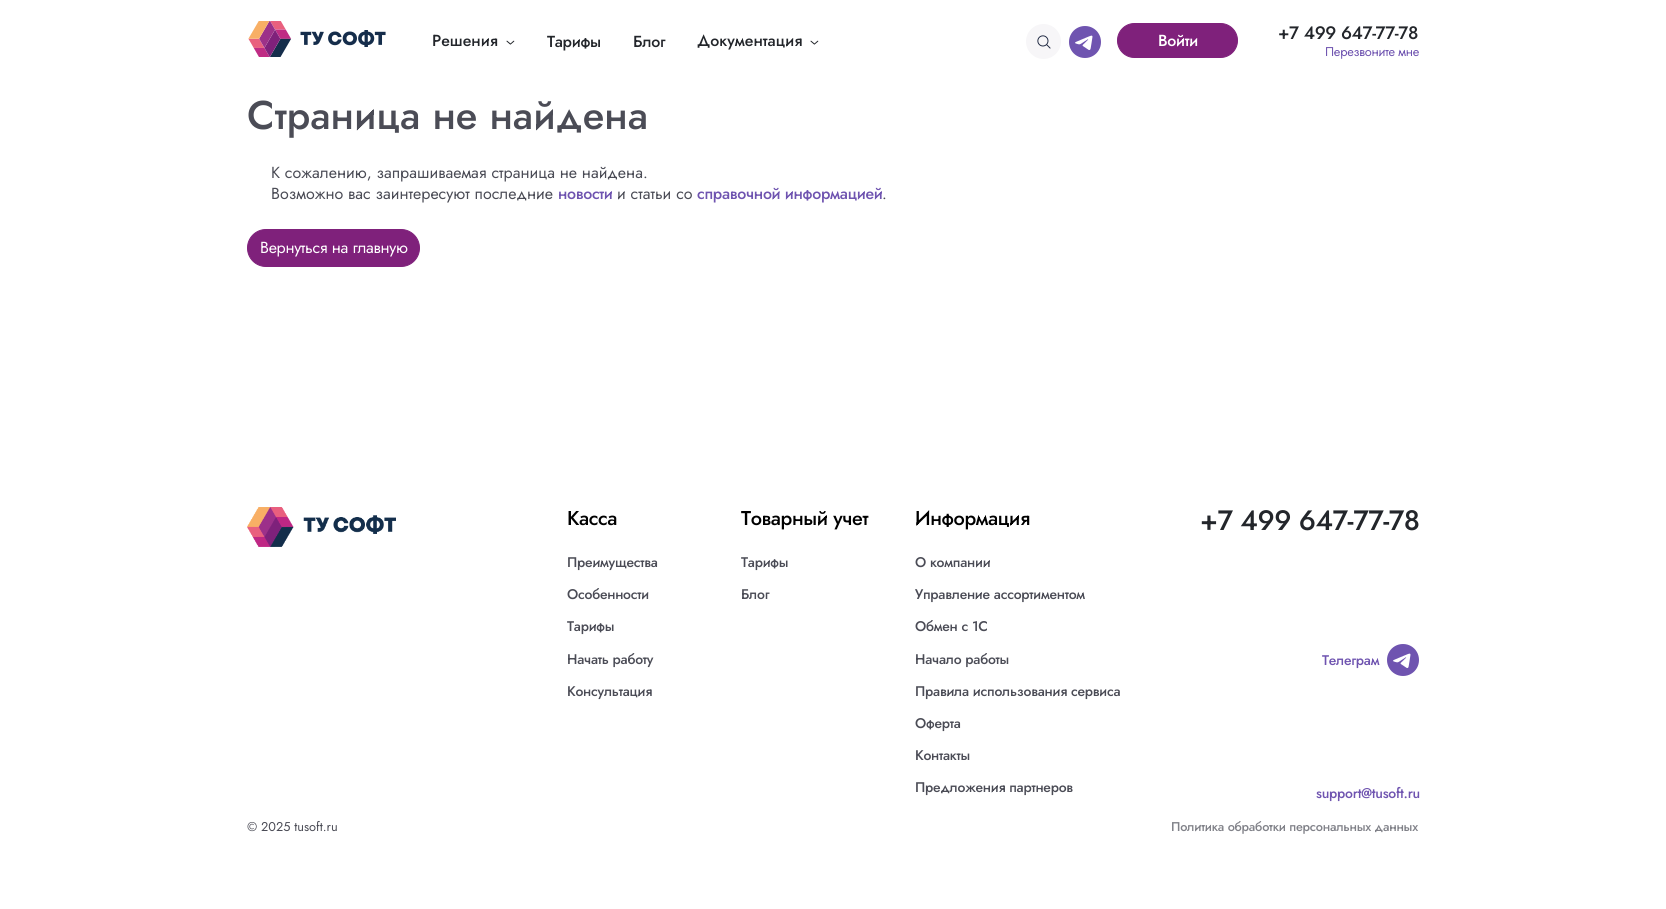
#include <cairo/cairo.h>
#include <math.h>
#include <stddef.h>

typedef struct { double x, y; const char *s; } line_t;
static cairo_t *cr;

static void rgb(unsigned color)
{
	cairo_set_source_rgb(cr, (color >> 16) / 255.0, (color >> 8 & 255) / 255.0, (color & 255) / 255.0);
}

static void tracked(double x, double y, const char *s, double letter, double word)
{
	cairo_move_to(cr, x, y);
	while (*s) {
		char ch[5] = {0};
		int n = 0;
		do ch[n++] = *s++; while ((*s & 0xC0) == 0x80);
		cairo_show_text(cr, ch);
		cairo_rel_move_to(cr, letter + word * (*ch == ' '), 0);
	}
}

static void rrect(double x, double y, double w, double h, double r)
{
	cairo_new_sub_path(cr);
	cairo_arc(cr, x + w - r, y + h - r, r, 0, M_PI / 2);
	cairo_arc(cr, x + r, y + h - r, r, M_PI / 2, M_PI);
	cairo_arc(cr, x + r, y + r, r, M_PI, 1.5 * M_PI);
	cairo_arc(cr, x + w - r, y + r, r, 1.5 * M_PI, 2 * M_PI);
	cairo_close_path(cr);
}

static void image(const char *path, double x, double y, double w, double h)
{
	cairo_surface_t *image = cairo_image_surface_create_from_png(path);
	cairo_save(cr);
	cairo_set_source_surface(cr, image, x, y);
	cairo_rectangle(cr, x, y, w, h);
	cairo_fill(cr);
	cairo_restore(cr);
	cairo_surface_destroy(image);
}

int main(void) {
	cairo_surface_t *surface = cairo_image_surface_create(CAIRO_FORMAT_RGB24, 1666, 909);
	cr = cairo_create(surface);
	cairo_font_options_t *options = cairo_font_options_create();
	cairo_font_options_set_hint_metrics(options, CAIRO_HINT_METRICS_OFF);
	cairo_font_options_set_hint_style(options, CAIRO_HINT_STYLE_NONE);
	cairo_set_font_options(cr, options);
	cairo_set_miter_limit(cr, 4);
	rgb(0xffffff);
	cairo_paint(cr);
	image("img/1.png", 248, 21, 138, 36);
	image("img/2.png", 506, 40, 9, 5);
	image("img/2.png", 810, 40, 9, 5);
	rgb(0xf7f6f8);
	cairo_arc(cr, 1043.5, 41.5, 17.5, 0, 2 * M_PI);
	cairo_fill(cr);
	image("img/3.png", 1037, 35, 14, 14);
	image("img/4.png", 1069, 26, 32, 32);
	rgb(0x7f217b);
	rrect(1117.5, 23.5, 120, 34, 17);
	cairo_fill_preserve(cr);
	cairo_set_line_width(cr, 1);
	cairo_stroke(cr);
	rrect(247.5, 229.5, 172, 37, 18.5);
	cairo_fill_preserve(cr);
	cairo_stroke(cr);
	image("img/5.png", 247, 507, 149, 40);
	image("img/4.png", 1387, 644, 32, 32);
	cairo_select_font_face(cr, "Jost Medium", CAIRO_FONT_SLANT_NORMAL, CAIRO_FONT_WEIGHT_NORMAL);
	cairo_set_font_size(cr, 16);
	rgb(0x23262b);
	cairo_move_to(cr, 432, 46);
	cairo_show_text(cr, "Решения");
	tracked(547, 47, "Тарифы", -0.3, 0);
	tracked(633, 47, "Блог", -0.3, 0);
	cairo_move_to(cr, 697, 46);
	cairo_show_text(cr, "Документация");
	rgb(0xffffff);
	tracked(1158, 46, "Войти", -0.3, 0);
	cairo_set_font_size(cr, 18);
	rgb(0x23262b);
	tracked(1278, 39, "+7 499 647-77-78", -0.4, 0);
	cairo_select_font_face(cr, "Jost", CAIRO_FONT_SLANT_NORMAL, CAIRO_FONT_WEIGHT_NORMAL);
	cairo_set_font_size(cr, 12.75);
	rgb(0x6f54b0);
	tracked(1325, 56, "Перезвоните мне", -0.25, 0);
	cairo_select_font_face(cr, "Jost Medium", CAIRO_FONT_SLANT_NORMAL, CAIRO_FONT_WEIGHT_NORMAL);
	cairo_set_font_size(cr, 40);
	rgb(0x4b4c56);
	cairo_move_to(cr, 247, 129);
	cairo_show_text(cr, "Страница не найдена");
	cairo_select_font_face(cr, "Jost", CAIRO_FONT_SLANT_NORMAL, CAIRO_FONT_WEIGHT_NORMAL);
	cairo_set_font_size(cr, 16);
	cairo_move_to(cr, 271, 178);
	cairo_show_text(cr, "К сожалению, запрашиваемая страница не найдена.");
	cairo_move_to(cr, 271, 199);
	cairo_show_text(cr, "Возможно вас заинтересуют последние");
	cairo_select_font_face(cr, "Jost Medium", CAIRO_FONT_SLANT_NORMAL, CAIRO_FONT_WEIGHT_NORMAL);
	rgb(0x6f54b0);
	tracked(558, 199, "новости", -0.3, 0);
	cairo_select_font_face(cr, "Jost", CAIRO_FONT_SLANT_NORMAL, CAIRO_FONT_WEIGHT_NORMAL);
	rgb(0x4b4c56);
	cairo_move_to(cr, 617, 199);
	cairo_show_text(cr, "и статьи со");
	cairo_select_font_face(cr, "Jost Medium", CAIRO_FONT_SLANT_NORMAL, CAIRO_FONT_WEIGHT_NORMAL);
	rgb(0x6f54b0);
	tracked(697, 199, "справочной информацией", -0.3, 0);
	cairo_select_font_face(cr, "Jost", CAIRO_FONT_SLANT_NORMAL, CAIRO_FONT_WEIGHT_NORMAL);
	rgb(0x4b4c56);
	cairo_move_to(cr, 882, 199);
	cairo_show_text(cr, ".");
	rgb(0xffffff);
	tracked(260, 253, "Вернуться на главную", -0.3, 0);
	cairo_select_font_face(cr, "Jost Medium", CAIRO_FONT_SLANT_NORMAL, CAIRO_FONT_WEIGHT_NORMAL);
	cairo_set_font_size(cr, 20);
	rgb(0x000000);
	tracked(567, 525, "Касса", -0.4, 0);
	cairo_set_font_size(cr, 14);
	rgb(0x4b4c56);
	{
		static const line_t items[] = {
			{567, 567, "Преимущества"},
			{567, 599, "Особенности"},
			{567, 631, "Тарифы"},
			{567, 664, "Начать работу"},
			{567, 696, "Консультация"},
		};
		for (size_t i = 0; i < sizeof items / sizeof *items; i++) {
			tracked(items[i].x, items[i].y, items[i].s, -0.25, 0);
		}
	}
	cairo_set_font_size(cr, 20);
	rgb(0x000000);
	tracked(741, 525, "Товарный учет", -0.4, 0);
	cairo_set_font_size(cr, 14);
	rgb(0x4b4c56);
	tracked(741, 567, "Тарифы", -0.25, 0);
	tracked(741, 599, "Блог", -0.25, 0);
	cairo_set_font_size(cr, 20);
	rgb(0x000000);
	tracked(915, 525, "Информация", -0.4, 0);
	cairo_set_font_size(cr, 14);
	rgb(0x4b4c56);
	{
		static const line_t items[] = {
			{915, 567, "О компании"},
			{915, 599, "Управление ассортиментом"},
			{915, 631, "Обмен с 1С"},
			{915, 664, "Начало работы"},
			{915, 696, "Правила использования сервиса"},
			{915, 728, "Оферта"},
			{915, 760, "Контакты"},
			{915, 792, "Предложения партнеров"},
		};
		for (size_t i = 0; i < sizeof items / sizeof *items; i++) {
			tracked(items[i].x, items[i].y, items[i].s, -0.25, 0);
		}
	}
	cairo_set_font_size(cr, 28);
	rgb(0x23262b);
	tracked(1200, 530, "+7 499 647-77-78", -0.5, 0);
	cairo_set_font_size(cr, 14);
	rgb(0x6f54b0);
	tracked(1322, 665, "Телеграм", -0.25, 0);
	tracked(1316, 798, "support@tusoft.ru", -0.25, 0);
	cairo_select_font_face(cr, "Jost", CAIRO_FONT_SLANT_NORMAL, CAIRO_FONT_WEIGHT_NORMAL);
	cairo_set_font_size(cr, 12.75);
	rgb(0x4b4c56);
	cairo_move_to(cr, 247, 831);
	cairo_show_text(cr, "© 2025 tusoft.ru");
	cairo_select_font_face(cr, "Jost Medium", CAIRO_FONT_SLANT_NORMAL, CAIRO_FONT_WEIGHT_NORMAL);
	rgb(0x818289);
	tracked(1171, 831, "Политика обработки персональных данных", -0.25, 0);
	cairo_surface_write_to_png(surface, "page.png");
	cairo_font_options_destroy(options);
	cairo_destroy(cr);
	cairo_surface_destroy(surface);
	return 0;
}
